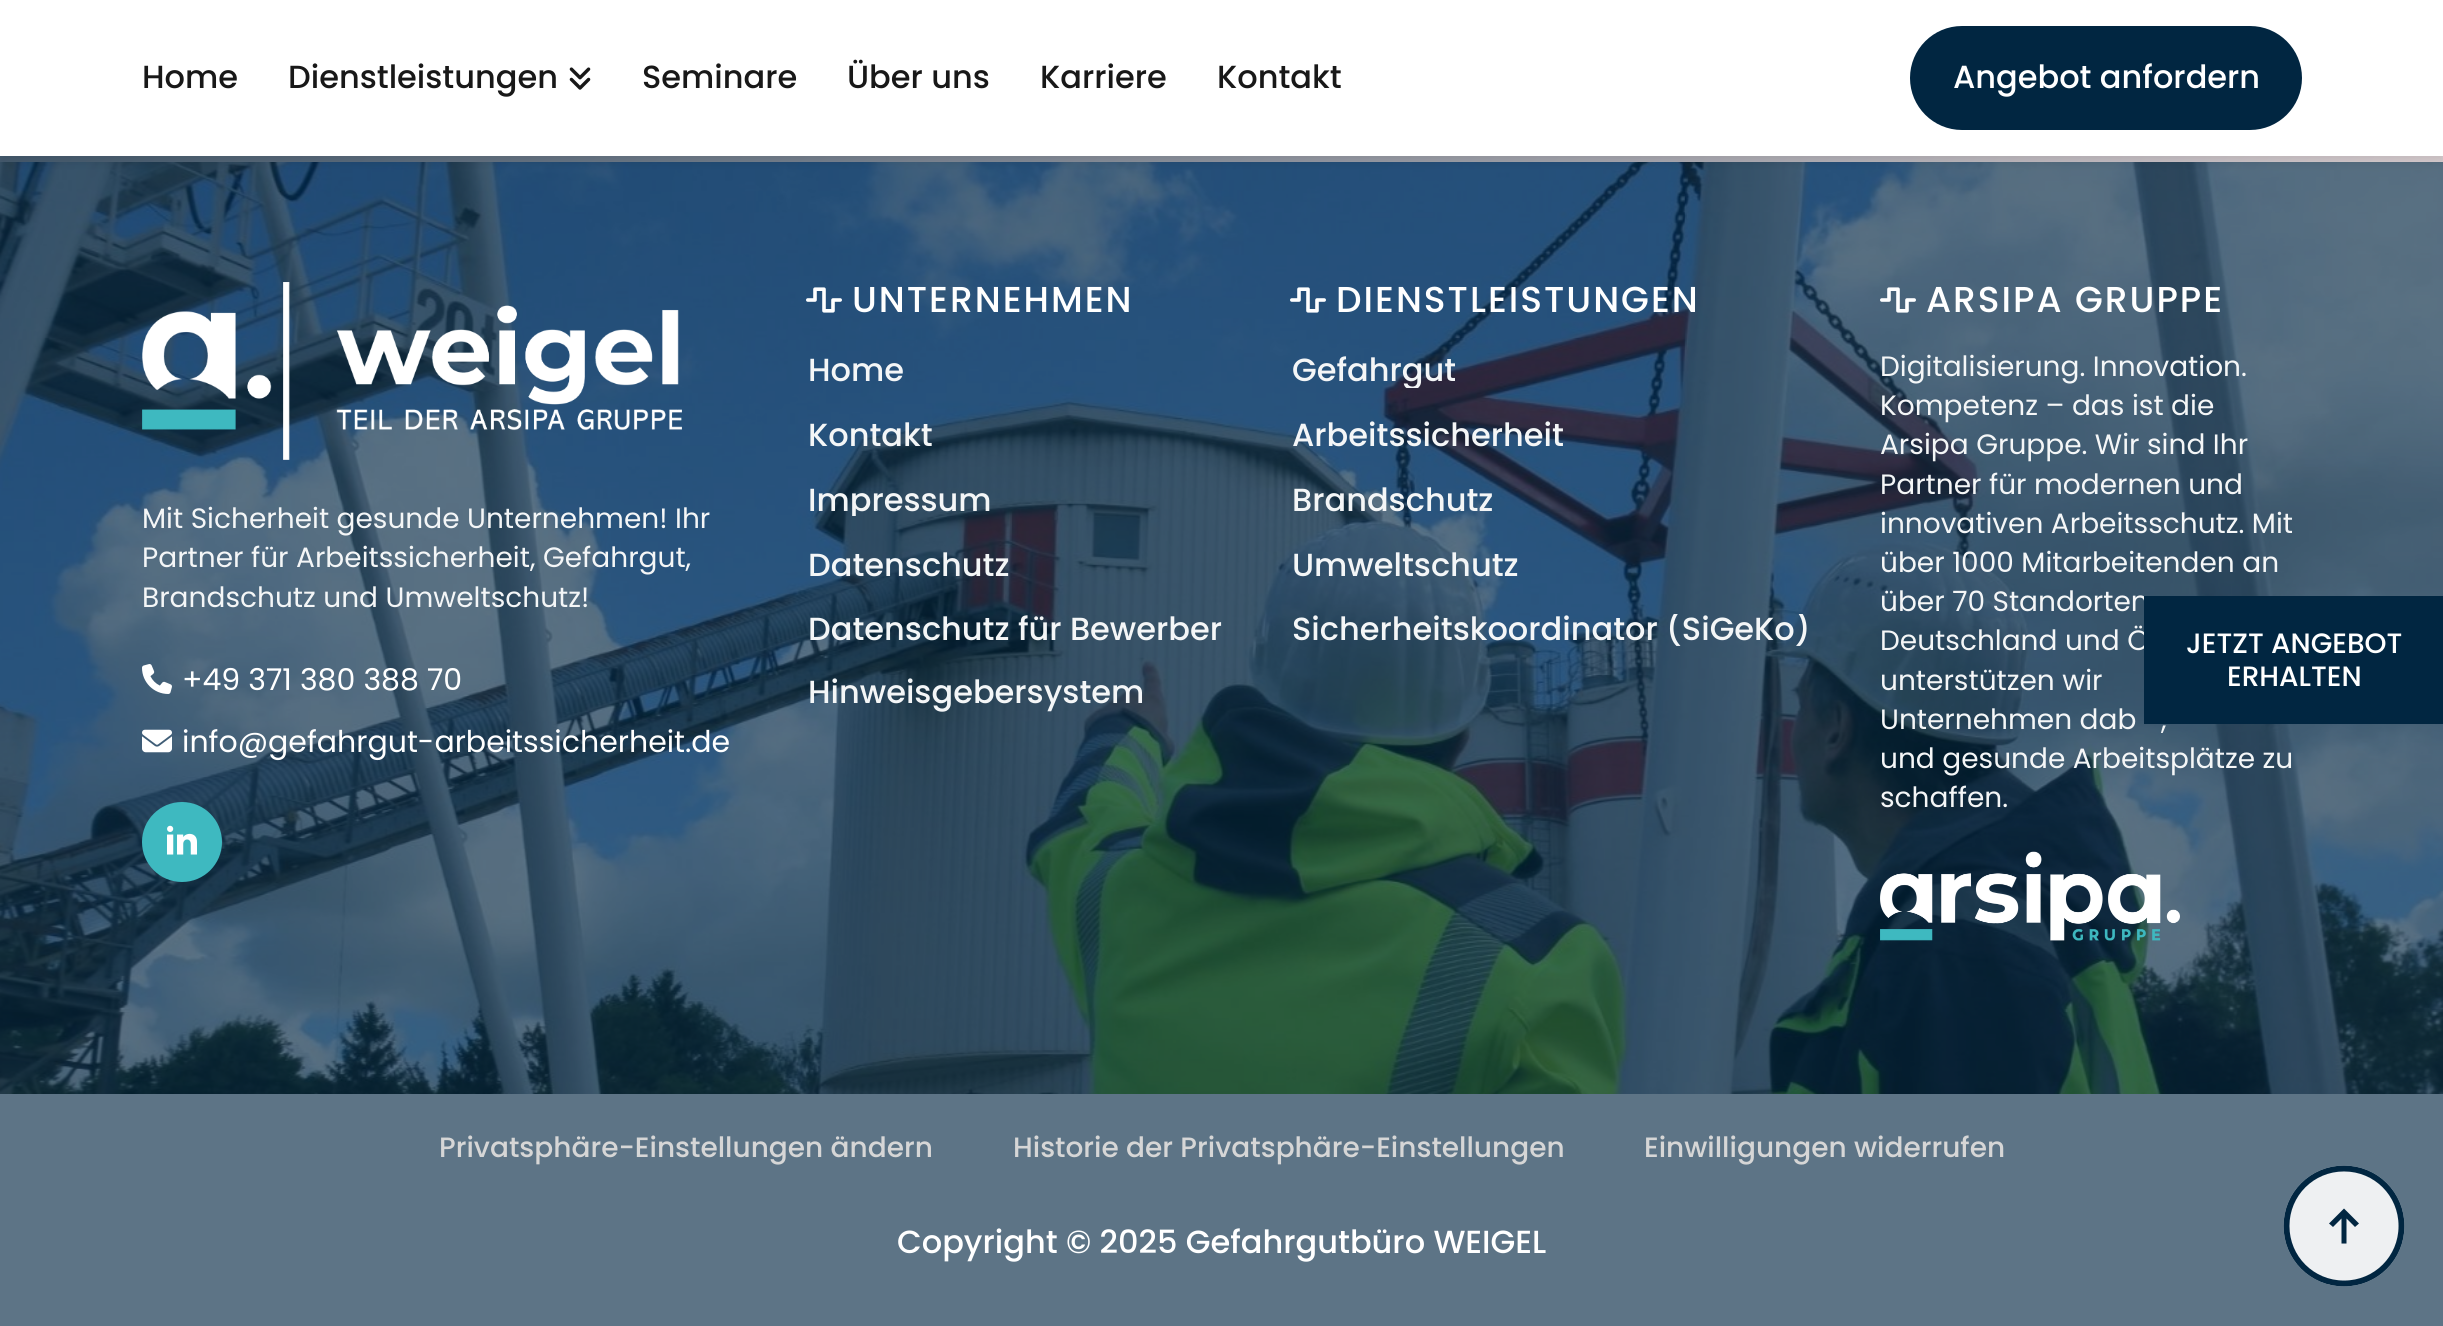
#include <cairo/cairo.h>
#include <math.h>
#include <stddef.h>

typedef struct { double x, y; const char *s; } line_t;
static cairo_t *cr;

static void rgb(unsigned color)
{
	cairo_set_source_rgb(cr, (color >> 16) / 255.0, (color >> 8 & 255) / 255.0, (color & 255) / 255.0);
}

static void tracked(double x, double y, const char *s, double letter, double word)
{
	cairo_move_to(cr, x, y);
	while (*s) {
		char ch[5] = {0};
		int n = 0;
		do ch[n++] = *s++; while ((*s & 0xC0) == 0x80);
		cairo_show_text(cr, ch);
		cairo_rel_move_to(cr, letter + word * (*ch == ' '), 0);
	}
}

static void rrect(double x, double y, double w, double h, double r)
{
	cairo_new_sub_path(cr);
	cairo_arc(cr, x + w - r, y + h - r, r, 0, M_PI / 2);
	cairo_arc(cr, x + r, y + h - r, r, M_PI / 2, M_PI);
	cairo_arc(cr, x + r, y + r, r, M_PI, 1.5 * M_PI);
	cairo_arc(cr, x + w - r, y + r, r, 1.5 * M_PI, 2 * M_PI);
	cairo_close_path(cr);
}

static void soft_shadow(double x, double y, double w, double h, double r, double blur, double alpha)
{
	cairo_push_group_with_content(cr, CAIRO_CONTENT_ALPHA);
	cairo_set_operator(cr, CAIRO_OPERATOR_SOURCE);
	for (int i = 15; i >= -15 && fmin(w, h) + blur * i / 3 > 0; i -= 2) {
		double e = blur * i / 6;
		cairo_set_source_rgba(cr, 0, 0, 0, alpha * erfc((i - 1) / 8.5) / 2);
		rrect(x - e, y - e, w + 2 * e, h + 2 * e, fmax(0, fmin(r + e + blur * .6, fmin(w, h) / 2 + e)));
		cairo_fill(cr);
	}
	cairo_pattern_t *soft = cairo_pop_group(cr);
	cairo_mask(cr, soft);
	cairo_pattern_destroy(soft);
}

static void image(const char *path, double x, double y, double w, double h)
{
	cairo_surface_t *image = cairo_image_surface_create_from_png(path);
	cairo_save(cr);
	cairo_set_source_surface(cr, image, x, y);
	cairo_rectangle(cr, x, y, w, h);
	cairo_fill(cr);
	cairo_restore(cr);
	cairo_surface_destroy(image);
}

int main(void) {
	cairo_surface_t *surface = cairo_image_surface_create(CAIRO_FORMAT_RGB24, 2443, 1326);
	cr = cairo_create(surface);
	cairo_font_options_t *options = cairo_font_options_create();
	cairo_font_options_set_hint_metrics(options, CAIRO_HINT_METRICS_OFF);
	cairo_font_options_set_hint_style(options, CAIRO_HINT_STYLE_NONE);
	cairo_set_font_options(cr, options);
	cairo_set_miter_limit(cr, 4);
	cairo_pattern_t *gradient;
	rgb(0xffffff);
	cairo_paint(cr);
	gradient = cairo_pattern_create_linear(2266, 375, 178, -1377);
	cairo_pattern_add_color_stop_rgba(gradient, 0, 0.859, 0.816, 0.827, 1);
	cairo_pattern_add_color_stop_rgba(gradient, 1, 0.004, 0.149, 0.255, 1);
	cairo_set_source(cr, gradient);
	cairo_pattern_destroy(gradient);
	cairo_rectangle(cr, 0, 156, 2443, 6);
	cairo_fill(cr);
	image("img/2.png", 0, 162, 2443, 932);
	rgb(0x000000);
	soft_shadow(0, 6, 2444, 156, 0, 5, 0.1);
	rgb(0xffffff);
	cairo_rectangle(cr, 0, 0, 2443, 156);
	cairo_fill(cr);
	image("img/1.png", 569, 67, 22, 23);
	rgb(0x012641);
	rrect(1910, 26, 392, 104, 52);
	cairo_fill(cr);
	image("img/3.png", 142, 282, 540, 178);
	image("img/4.png", 142, 664, 30, 30);
	image("img/5.png", 142, 729, 30, 24);
	rgb(0x3eb9c0);
	cairo_arc(cr, 182, 842, 40, 0, 2 * M_PI);
	cairo_fill(cr);
	image("img/6.png", 167, 825, 30, 30);
	image("img/7.png", 806, 287, 36, 26);
	image("img/8.png", 1290, 287, 36, 26);
	image("img/9.png", 1880, 287, 36, 26);
	image("img/10.png", 1880, 851, 300, 90);
	rgb(0x5d7486);
	cairo_rectangle(cr, 0, 1094, 2443, 232);
	cairo_fill(cr);
	rgb(0xffffff);
	cairo_arc(cr, 2344, 1226, 60, 0, 2 * M_PI);
	cairo_fill(cr);
	cairo_set_source_rgba(cr, 0.004, 0.149, 0.255, 0.07);
	cairo_arc(cr, 2344, 1226, 60, 0, 2 * M_PI);
	cairo_fill(cr);
	rgb(0x012641);
	cairo_new_path(cr);
	cairo_move_to(cr, 2346, 1210.5);
	cairo_line_to(cr, 2344, 1208.5);
	cairo_line_to(cr, 2329, 1223.5);
	cairo_line_to(cr, 2333, 1227);
	cairo_line_to(cr, 2341.5, 1218.5);
	cairo_line_to(cr, 2341.5, 1243.5);
	cairo_line_to(cr, 2346.5, 1243.5);
	cairo_line_to(cr, 2346.5, 1218.5);
	cairo_line_to(cr, 2355, 1227);
	cairo_line_to(cr, 2359, 1223.5);
	cairo_close_path(cr);
	cairo_fill(cr);
	cairo_new_path(cr);
	cairo_move_to(cr, 2344, 1168.5);
	cairo_curve_to(cr, 2376, 1168.5, 2401.5, 1194, 2401.5, 1226);
	cairo_curve_to(cr, 2401.5, 1258, 2376, 1283.5, 2344, 1283.5);
	cairo_curve_to(cr, 2312, 1283.5, 2286.5, 1258, 2286.5, 1226);
	cairo_curve_to(cr, 2286.5, 1194, 2312, 1168.5, 2344, 1168.5);
	rgb(0xe5e7eb);
	cairo_set_line_width(cr, 5.9);
	cairo_set_line_cap(cr, CAIRO_LINE_CAP_ROUND);
	cairo_stroke(cr);
	cairo_new_path(cr);
	cairo_move_to(cr, 2344, 1168.5);
	cairo_curve_to(cr, 2376, 1168.5, 2401.5, 1194, 2401.5, 1226);
	cairo_curve_to(cr, 2401.5, 1258, 2376, 1283.5, 2344, 1283.5);
	cairo_curve_to(cr, 2312, 1283.5, 2286.5, 1258, 2286.5, 1226);
	cairo_curve_to(cr, 2286.5, 1194, 2312, 1168.5, 2344, 1168.5);
	rgb(0x012641);
	cairo_stroke(cr);
	cairo_select_font_face(cr, "Poppins Medium", CAIRO_FONT_SLANT_NORMAL, CAIRO_FONT_WEIGHT_NORMAL);
	cairo_set_font_size(cr, 32);
	rgb(0x181818);
	{
		static const line_t items[] = {
			{142, 88, "Home"},
			{288, 88, "Dienstleistungen"},
			{642, 88, "Seminare"},
			{847, 88, "Über uns"},
			{1040, 88, "Karriere"},
			{1217, 88, "Kontakt"},
		};
		for (size_t i = 0; i < sizeof items / sizeof *items; i++) {
			cairo_move_to(cr, items[i].x, items[i].y);
			cairo_show_text(cr, items[i].s);
		}
	}
	rgb(0xffffff);
	cairo_move_to(cr, 1953, 88);
	cairo_show_text(cr, "Angebot anfordern");
	cairo_select_font_face(cr, "Poppins", CAIRO_FONT_SLANT_NORMAL, CAIRO_FONT_WEIGHT_NORMAL);
	cairo_set_font_size(cr, 28);
	rgb(0xf4f6f7);
	{
		static const line_t items[] = {
			{142, 528, "Mit Sicherheit gesunde Unternehmen! Ihr"},
			{142, 567, "Partner für Arbeitssicherheit, Gefahrgut,"},
			{142, 607, "Brandschutz und Umweltschutz!"},
		};
		for (size_t i = 0; i < sizeof items / sizeof *items; i++) {
			cairo_move_to(cr, items[i].x, items[i].y);
			cairo_show_text(cr, items[i].s);
		}
	}
	cairo_set_font_size(cr, 30);
	rgb(0xffffff);
	cairo_move_to(cr, 182, 690);
	cairo_show_text(cr, "+49 371 380 388 70");
	cairo_move_to(cr, 182, 752);
	cairo_show_text(cr, "info@gefahrgut-arbeitssicherheit.de");
	cairo_select_font_face(cr, "Poppins Medium", CAIRO_FONT_SLANT_NORMAL, CAIRO_FONT_WEIGHT_NORMAL);
	cairo_set_font_size(cr, 36);
	tracked(852, 312, "UNTERNEHMEN", 2, 0);
	cairo_set_font_size(cr, 32);
	rgb(0xf4f6f7);
	cairo_move_to(cr, 808, 381);
	cairo_show_text(cr, "Home");
	cairo_move_to(cr, 808, 446);
	cairo_show_text(cr, "Kontakt");
	cairo_save(cr);
	cairo_rectangle(cr, 808, 484, 184, 32);
	cairo_clip(cr);
	cairo_move_to(cr, 808, 511);
	cairo_show_text(cr, "Impressum");
	cairo_restore(cr);
	{
		static const line_t items[] = {
			{808, 576, "Datenschutz"},
			{808, 640, "Datenschutz für Bewerber"},
			{808, 703, "Hinweisgebersystem"},
		};
		for (size_t i = 0; i < sizeof items / sizeof *items; i++) {
			cairo_move_to(cr, items[i].x, items[i].y);
			cairo_show_text(cr, items[i].s);
		}
	}
	cairo_set_font_size(cr, 36);
	rgb(0xffffff);
	tracked(1336, 312, "DIENSTLEISTUNGEN", 2, 0);
	cairo_save(cr);
	cairo_rectangle(cr, 1292, 356, 164, 32);
	cairo_clip(cr);
	cairo_set_font_size(cr, 32);
	rgb(0xf4f6f7);
	cairo_move_to(cr, 1292, 381);
	cairo_show_text(cr, "Gefahrgut");
	cairo_restore(cr);
	cairo_set_font_size(cr, 32);
	rgb(0xf4f6f7);
	{
		static const line_t items[] = {
			{1292, 446, "Arbeitssicherheit"},
			{1292, 511, "Brandschutz"},
			{1292, 576, "Umweltschutz"},
		};
		for (size_t i = 0; i < sizeof items / sizeof *items; i++) {
			cairo_move_to(cr, items[i].x, items[i].y);
			cairo_show_text(cr, items[i].s);
		}
	}
	cairo_save(cr);
	cairo_rectangle(cr, 1292, 614, 518, 32);
	cairo_clip(cr);
	cairo_move_to(cr, 1292, 640);
	cairo_show_text(cr, "Sicherheitskoordinator (SiGeKo)");
	cairo_restore(cr);
	cairo_set_font_size(cr, 36);
	rgb(0xffffff);
	tracked(1926, 312, "ARSIPA GRUPPE", 2, 0);
	cairo_select_font_face(cr, "Poppins", CAIRO_FONT_SLANT_NORMAL, CAIRO_FONT_WEIGHT_NORMAL);
	cairo_set_font_size(cr, 28);
	rgb(0xf4f6f7);
	{
		static const line_t items[] = {
			{1880, 376, "Digitalisierung. Innovation."},
			{1880, 415, "Kompetenz – das ist die"},
			{1880, 454, "Arsipa Gruppe. Wir sind Ihr"},
			{1880, 494, "Partner für modernen und"},
			{1880, 533, "innovativen Arbeitsschutz. Mit"},
			{1880, 572, "über 1000 Mitarbeitenden an"},
			{1880, 611, "über 70 Standorten"},
			{1880, 650, "Deutschland und Ö"},
			{1880, 690, "unterstützen wir"},
			{1880, 729, "Unternehmen dab"},
			{2161, 729, ","},
			{1880, 768, "und gesunde Arbeitsplätze zu"},
			{1880, 807, "schaffen."},
		};
		for (size_t i = 0; i < sizeof items / sizeof *items; i++) {
			cairo_move_to(cr, items[i].x, items[i].y);
			cairo_show_text(cr, items[i].s);
		}
	}
	rgb(0x012641);
	cairo_rectangle(cr, 2144, 596, 299, 128);
	cairo_fill(cr);
	cairo_select_font_face(cr, "Poppins Medium", CAIRO_FONT_SLANT_NORMAL, CAIRO_FONT_WEIGHT_NORMAL);
	rgb(0xffffff);
	cairo_move_to(cr, 2186, 653);
	cairo_show_text(cr, "JETZT ANGEBOT");
	cairo_move_to(cr, 2227, 686);
	cairo_show_text(cr, "ERHALTEN");
	rgb(0xd6d6d6);
	{
		static const line_t items[] = {
			{439, 1157, "Privatsphäre-Einstellungen ändern"},
			{1013, 1157, "Historie der Privatsphäre-Einstellungen"},
			{1644, 1157, "Einwilligungen widerrufen"},
		};
		for (size_t i = 0; i < sizeof items / sizeof *items; i++) {
			cairo_move_to(cr, items[i].x, items[i].y);
			cairo_show_text(cr, items[i].s);
		}
	}
	cairo_set_font_size(cr, 32);
	rgb(0xffffff);
	cairo_move_to(cr, 897, 1253);
	cairo_show_text(cr, "Copyright © 2025 Gefahrgutbüro WEIGEL");
	cairo_surface_write_to_png(surface, "page.png");
	cairo_font_options_destroy(options);
	cairo_destroy(cr);
	cairo_surface_destroy(surface);
	return 0;
}
